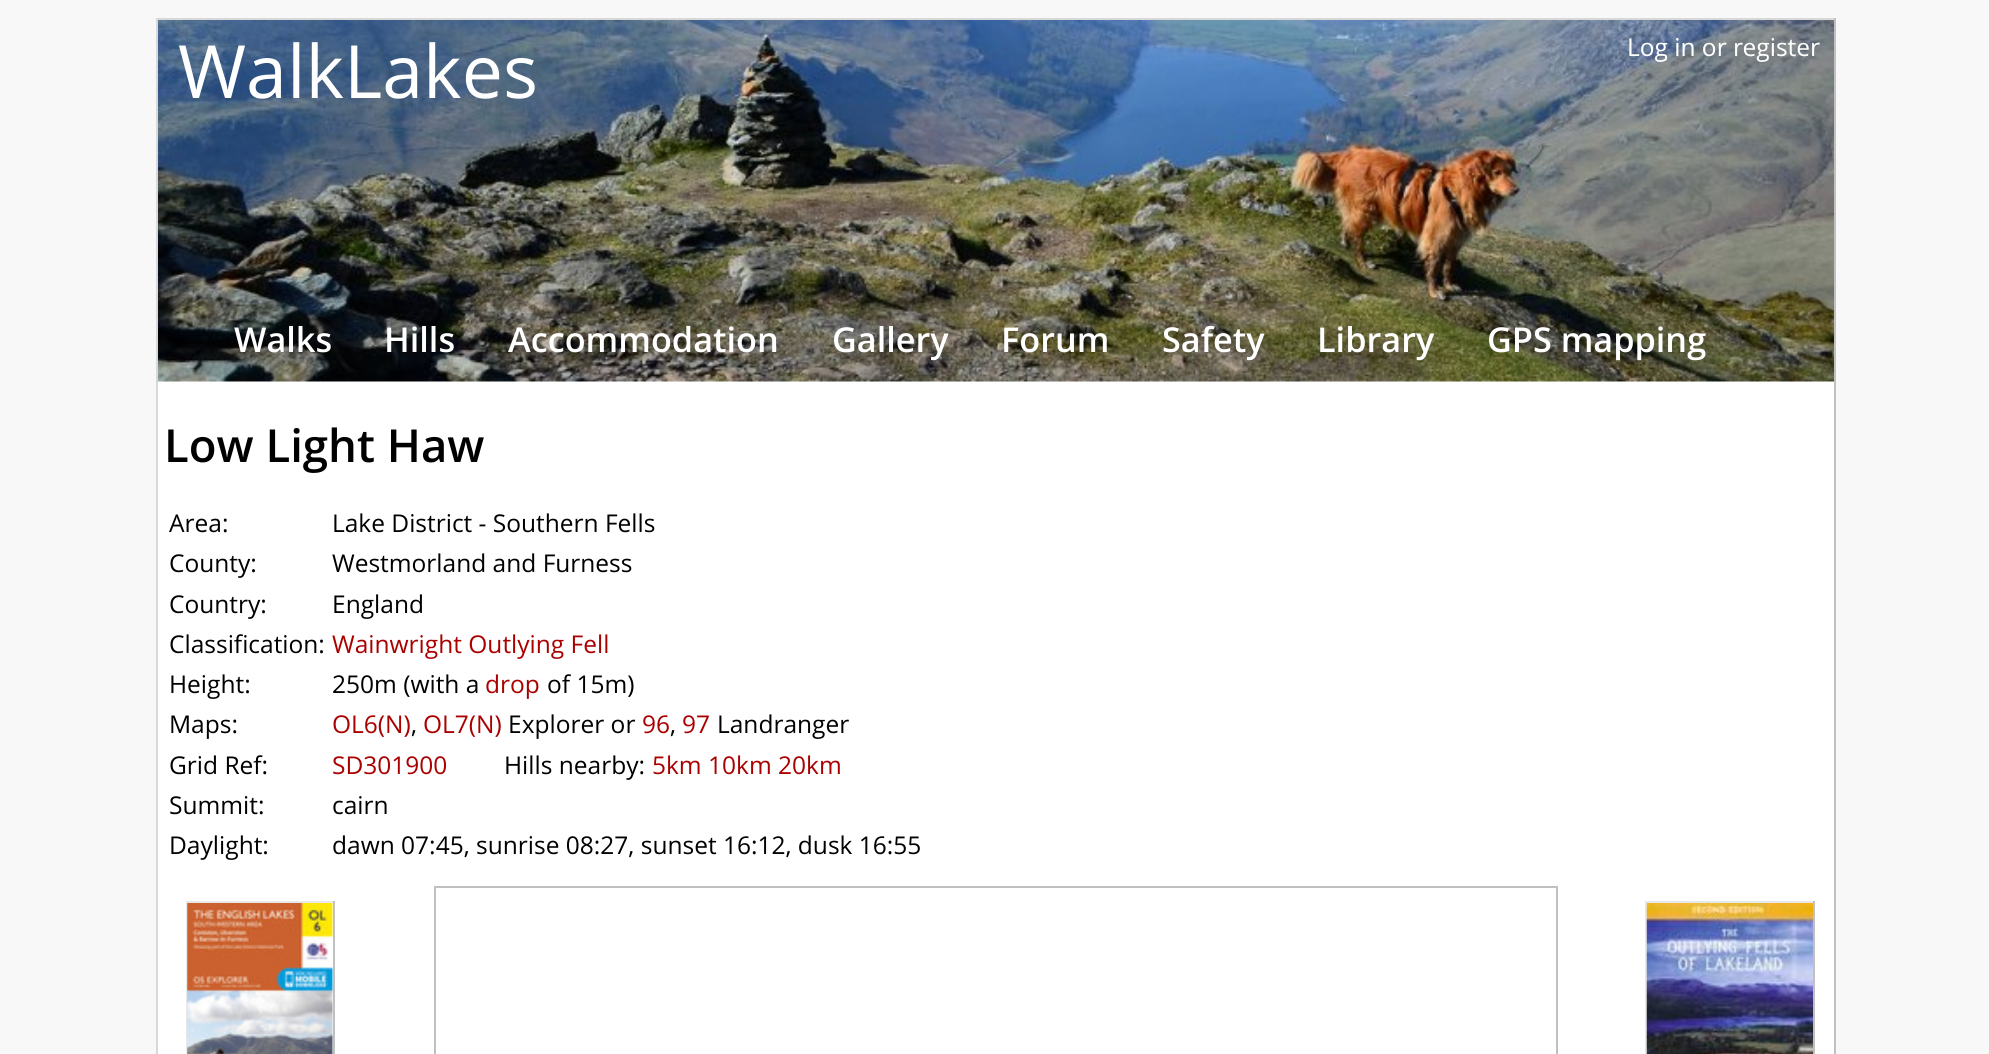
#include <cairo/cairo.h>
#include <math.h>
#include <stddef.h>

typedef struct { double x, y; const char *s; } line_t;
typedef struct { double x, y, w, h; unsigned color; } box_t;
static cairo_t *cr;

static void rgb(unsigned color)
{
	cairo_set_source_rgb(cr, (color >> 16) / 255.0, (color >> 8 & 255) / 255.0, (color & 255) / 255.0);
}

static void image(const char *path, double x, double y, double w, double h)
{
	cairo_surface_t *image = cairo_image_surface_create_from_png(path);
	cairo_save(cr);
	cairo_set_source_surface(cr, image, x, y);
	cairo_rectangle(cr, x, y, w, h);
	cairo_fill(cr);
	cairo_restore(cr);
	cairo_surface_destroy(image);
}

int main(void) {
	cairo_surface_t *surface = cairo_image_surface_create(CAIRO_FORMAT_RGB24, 1989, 1054);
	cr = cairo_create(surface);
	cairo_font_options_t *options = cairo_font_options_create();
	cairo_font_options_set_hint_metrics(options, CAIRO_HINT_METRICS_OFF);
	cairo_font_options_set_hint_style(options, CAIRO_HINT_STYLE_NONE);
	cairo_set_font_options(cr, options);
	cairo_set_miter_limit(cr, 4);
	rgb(0xf8f8f8);
	cairo_paint(cr);
	rgb(0xffffff);
	cairo_rectangle(cr, 158, 381, 1676, 673);
	cairo_fill(cr);
	image("img/1.png", 158, 20, 1676, 362);
	{
		static const box_t items[] = {
			{156, 18, 1680, 2, 0xd8d8d8},
			{1834, 18, 2, 1036, 0xc0c0c0},
			{156, 18, 2, 1036, 0xd8d8d8},
		};
		for (size_t i = 0; i < sizeof items / sizeof *items; i++) {
			rgb(items[i].color);
			cairo_rectangle(cr, items[i].x, items[i].y, items[i].w, items[i].h);
			cairo_fill(cr);
		}
	}
	image("img/2.png", 1629, 38, 191, 24);
	{
		static const box_t items[] = {
			{186, 901, 148, 2, 0xe8e8e8},
			{186, 901, 2, 153, 0xe8e8e8},
			{333, 901, 2, 153, 0xc0c0c0},
		};
		for (size_t i = 0; i < sizeof items / sizeof *items; i++) {
			rgb(items[i].color);
			cairo_rectangle(cr, items[i].x, items[i].y, items[i].w, items[i].h);
			cairo_fill(cr);
		}
	}
	image("img/3.png", 187, 903, 146, 151);
	cairo_rectangle(cr, 435, 887, 1122, 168);
	cairo_stroke(cr);
	{
		static const box_t items[] = {
			{1645, 901, 170, 2, 0xe8e8e8},
			{1645, 901, 2, 153, 0xe8e8e8},
			{1813, 901, 2, 153, 0xc0c0c0},
		};
		for (size_t i = 0; i < sizeof items / sizeof *items; i++) {
			rgb(items[i].color);
			cairo_rectangle(cr, items[i].x, items[i].y, items[i].w, items[i].h);
			cairo_fill(cr);
		}
	}
	image("img/4.png", 1646, 903, 167, 151);
	cairo_select_font_face(cr, "Open Sans", CAIRO_FONT_SLANT_NORMAL, CAIRO_FONT_WEIGHT_NORMAL);
	cairo_set_font_size(cr, 73.5);
	rgb(0xffffff);
	cairo_move_to(cr, 178, 98);
	cairo_show_text(cr, "WalkLakes");
	cairo_select_font_face(cr, "Open Sans SemiBold", CAIRO_FONT_SLANT_NORMAL, CAIRO_FONT_WEIGHT_NORMAL);
	cairo_set_font_size(cr, 34.25);
	{
		static const line_t items[] = {
			{234, 352, "Walks"},
			{384, 352, "Hills"},
			{508, 352, "Accommodation"},
			{832, 352, "Gallery"},
			{1001, 352, "Forum"},
			{1162, 352, "Safety"},
			{1317, 352, "Library"},
			{1487, 352, "GPS mapping"},
		};
		for (size_t i = 0; i < sizeof items / sizeof *items; i++) {
			cairo_move_to(cr, items[i].x, items[i].y);
			cairo_show_text(cr, items[i].s);
		}
	}
	cairo_set_font_size(cr, 45.5);
	rgb(0x000000);
	cairo_move_to(cr, 164, 462);
	cairo_show_text(cr, "Low Light Haw");
	cairo_select_font_face(cr, "Open Sans", CAIRO_FONT_SLANT_NORMAL, CAIRO_FONT_WEIGHT_NORMAL);
	cairo_set_font_size(cr, 24.5);
	{
		static const line_t items[] = {
			{169, 532, "Area:"},
			{332, 532, "Lake District - Southern Fells"},
			{169, 572, "County:"},
			{332, 572, "Westmorland and Furness"},
			{169, 613, "Country:"},
			{332, 613, "England"},
			{169, 653, "Classification:"},
		};
		for (size_t i = 0; i < sizeof items / sizeof *items; i++) {
			cairo_move_to(cr, items[i].x, items[i].y);
			cairo_show_text(cr, items[i].s);
		}
	}
	rgb(0xaa0000);
	cairo_move_to(cr, 332, 653);
	cairo_show_text(cr, "Wainwright Outlying Fell");
	rgb(0x000000);
	cairo_move_to(cr, 169, 693);
	cairo_show_text(cr, "Height:");
	cairo_move_to(cr, 332, 693);
	cairo_show_text(cr, "250m (with a");
	rgb(0xaa0000);
	cairo_move_to(cr, 485, 693);
	cairo_show_text(cr, "drop");
	rgb(0x000000);
	cairo_move_to(cr, 547, 693);
	cairo_show_text(cr, "of 15m)");
	cairo_move_to(cr, 169, 733);
	cairo_show_text(cr, "Maps:");
	rgb(0xaa0000);
	cairo_move_to(cr, 332, 733);
	cairo_show_text(cr, "OL6(N)");
	rgb(0x000000);
	cairo_move_to(cr, 411, 733);
	cairo_show_text(cr, ",");
	rgb(0xaa0000);
	cairo_move_to(cr, 423, 733);
	cairo_show_text(cr, "OL7(N)");
	rgb(0x000000);
	cairo_move_to(cr, 508, 733);
	cairo_show_text(cr, "Explorer or");
	rgb(0xaa0000);
	cairo_move_to(cr, 642, 733);
	cairo_show_text(cr, "96");
	rgb(0x000000);
	cairo_move_to(cr, 670, 733);
	cairo_show_text(cr, ",");
	rgb(0xaa0000);
	cairo_move_to(cr, 682, 733);
	cairo_show_text(cr, "97");
	rgb(0x000000);
	cairo_move_to(cr, 717, 733);
	cairo_show_text(cr, "Landranger");
	cairo_move_to(cr, 169, 774);
	cairo_show_text(cr, "Grid Ref:");
	rgb(0xaa0000);
	cairo_move_to(cr, 332, 774);
	cairo_show_text(cr, "SD301900");
	rgb(0x000000);
	cairo_move_to(cr, 504, 774);
	cairo_show_text(cr, "Hills nearby:");
	rgb(0xaa0000);
	cairo_move_to(cr, 652, 774);
	cairo_show_text(cr, "5km 10km 20km");
	rgb(0x000000);
	{
		static const line_t items[] = {
			{169, 814, "Summit:"},
			{332, 814, "cairn"},
			{169, 854, "Daylight:"},
			{332, 854, "dawn 07:45, sunrise 08:27, sunset 16:12, dusk 16:55"},
		};
		for (size_t i = 0; i < sizeof items / sizeof *items; i++) {
			cairo_move_to(cr, items[i].x, items[i].y);
			cairo_show_text(cr, items[i].s);
		}
	}
	cairo_surface_write_to_png(surface, "page.png");
	cairo_font_options_destroy(options);
	cairo_destroy(cr);
	cairo_surface_destroy(surface);
	return 0;
}
